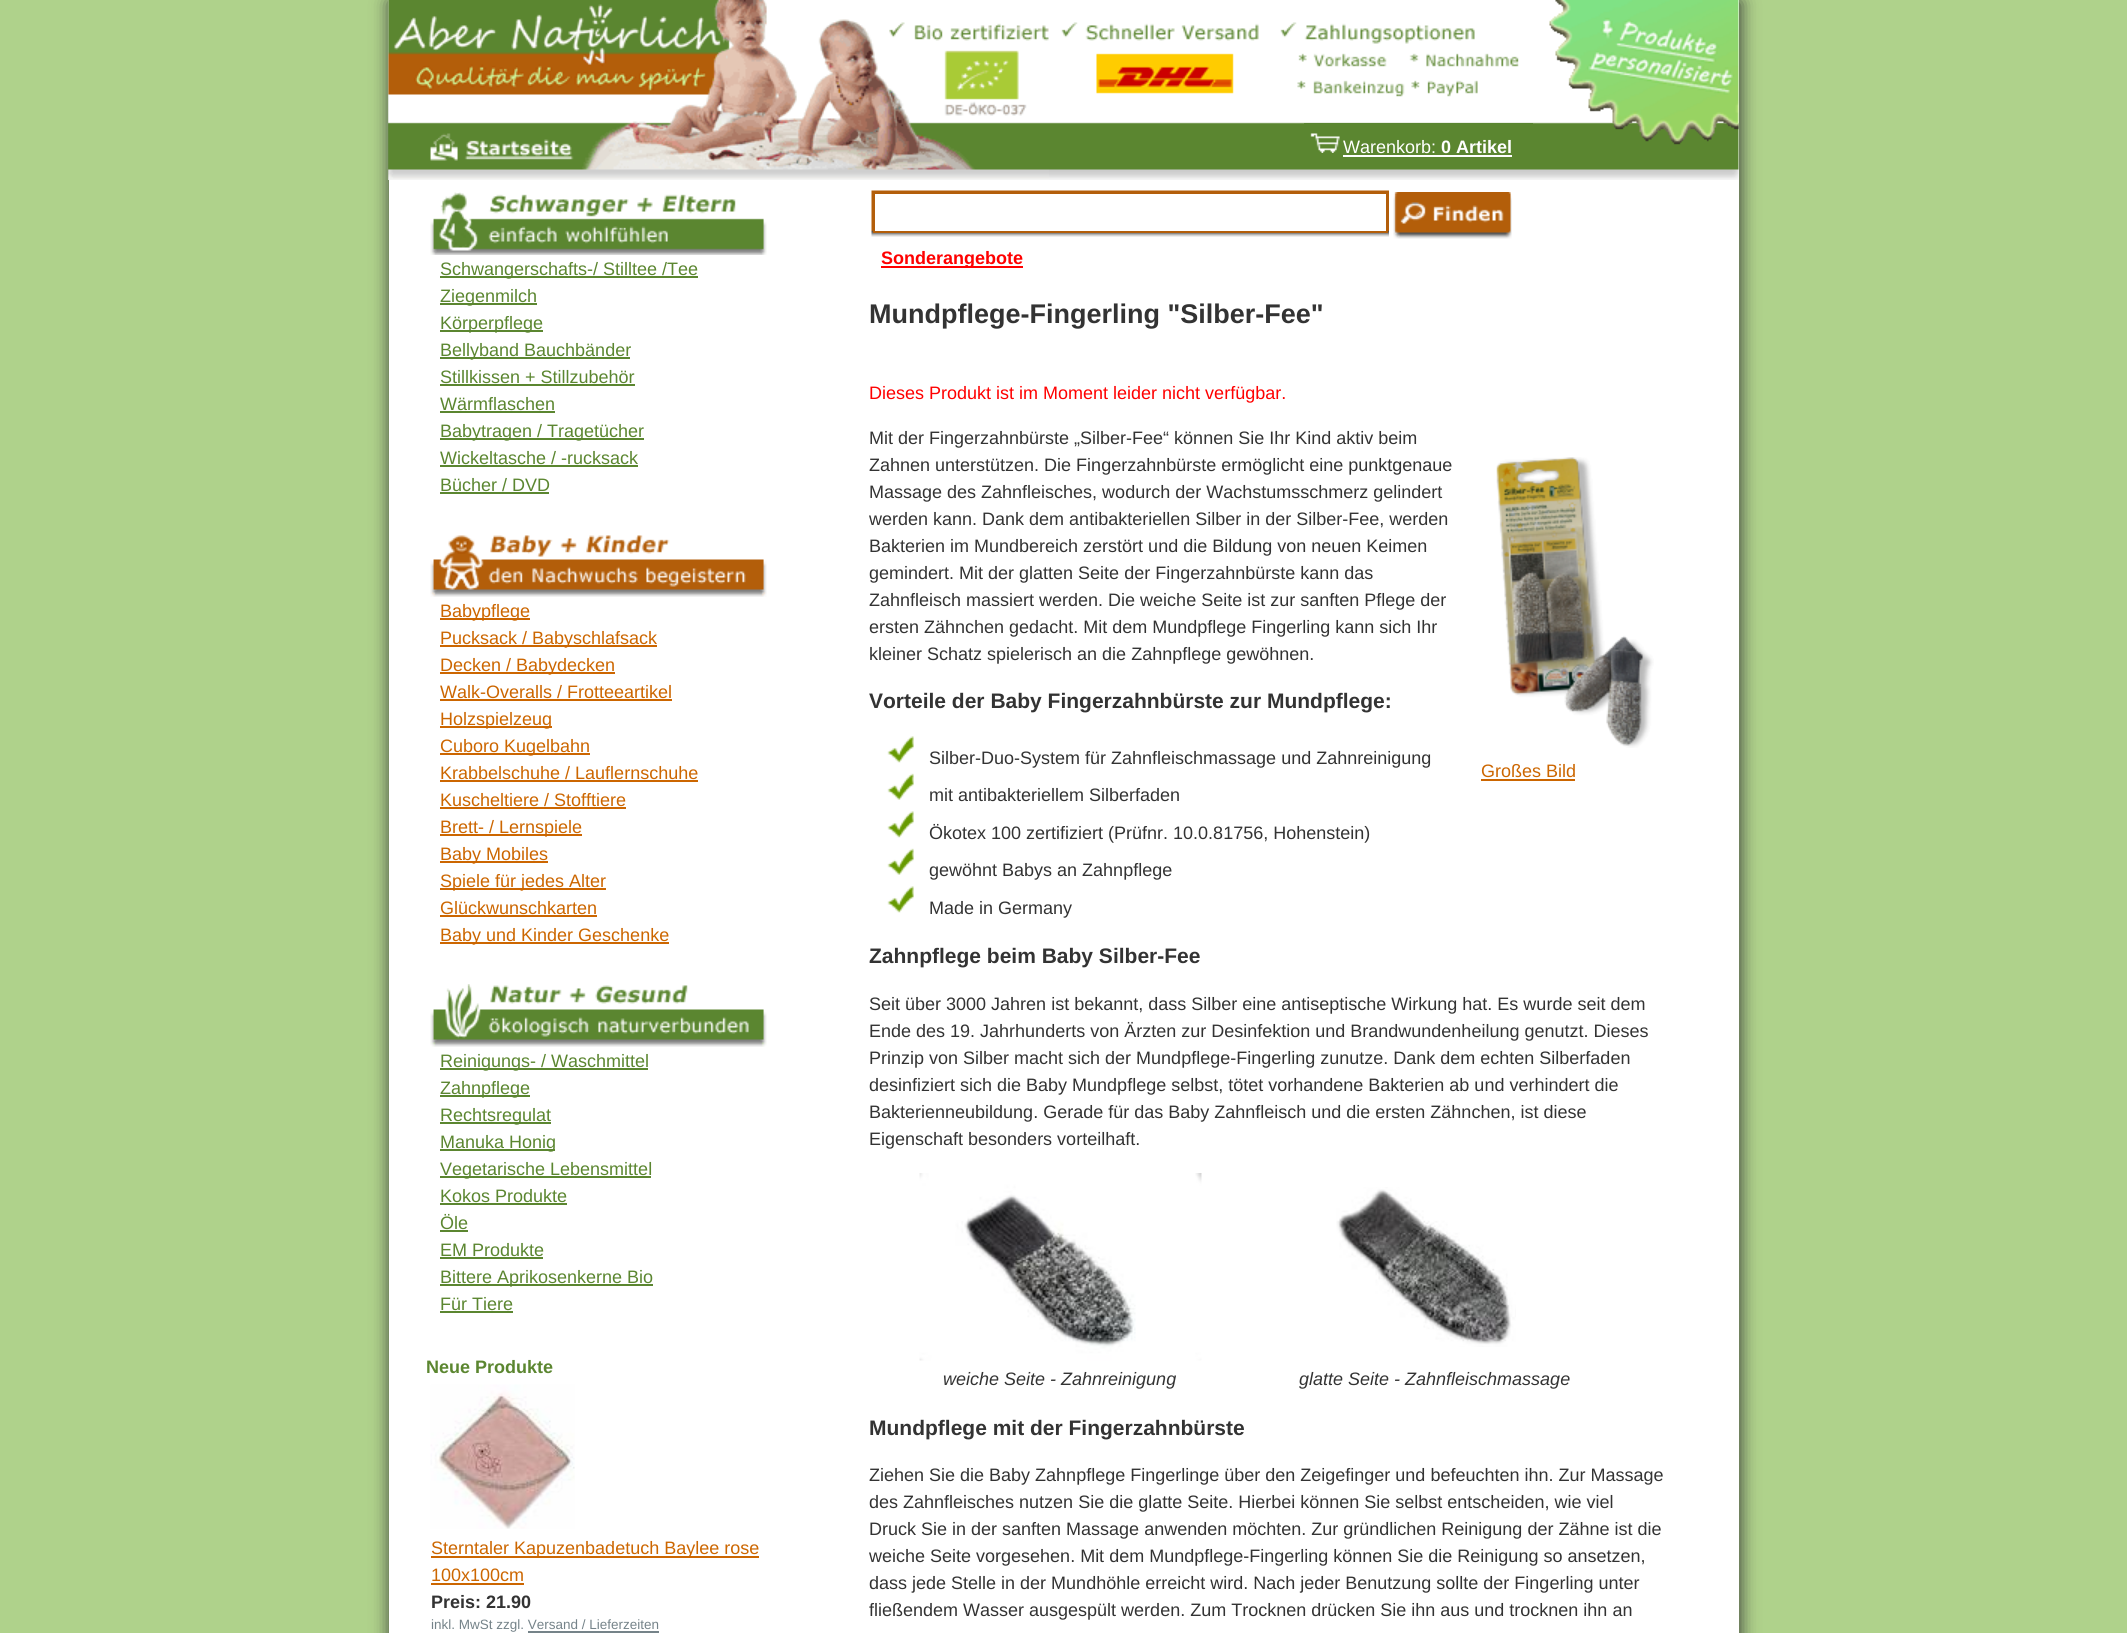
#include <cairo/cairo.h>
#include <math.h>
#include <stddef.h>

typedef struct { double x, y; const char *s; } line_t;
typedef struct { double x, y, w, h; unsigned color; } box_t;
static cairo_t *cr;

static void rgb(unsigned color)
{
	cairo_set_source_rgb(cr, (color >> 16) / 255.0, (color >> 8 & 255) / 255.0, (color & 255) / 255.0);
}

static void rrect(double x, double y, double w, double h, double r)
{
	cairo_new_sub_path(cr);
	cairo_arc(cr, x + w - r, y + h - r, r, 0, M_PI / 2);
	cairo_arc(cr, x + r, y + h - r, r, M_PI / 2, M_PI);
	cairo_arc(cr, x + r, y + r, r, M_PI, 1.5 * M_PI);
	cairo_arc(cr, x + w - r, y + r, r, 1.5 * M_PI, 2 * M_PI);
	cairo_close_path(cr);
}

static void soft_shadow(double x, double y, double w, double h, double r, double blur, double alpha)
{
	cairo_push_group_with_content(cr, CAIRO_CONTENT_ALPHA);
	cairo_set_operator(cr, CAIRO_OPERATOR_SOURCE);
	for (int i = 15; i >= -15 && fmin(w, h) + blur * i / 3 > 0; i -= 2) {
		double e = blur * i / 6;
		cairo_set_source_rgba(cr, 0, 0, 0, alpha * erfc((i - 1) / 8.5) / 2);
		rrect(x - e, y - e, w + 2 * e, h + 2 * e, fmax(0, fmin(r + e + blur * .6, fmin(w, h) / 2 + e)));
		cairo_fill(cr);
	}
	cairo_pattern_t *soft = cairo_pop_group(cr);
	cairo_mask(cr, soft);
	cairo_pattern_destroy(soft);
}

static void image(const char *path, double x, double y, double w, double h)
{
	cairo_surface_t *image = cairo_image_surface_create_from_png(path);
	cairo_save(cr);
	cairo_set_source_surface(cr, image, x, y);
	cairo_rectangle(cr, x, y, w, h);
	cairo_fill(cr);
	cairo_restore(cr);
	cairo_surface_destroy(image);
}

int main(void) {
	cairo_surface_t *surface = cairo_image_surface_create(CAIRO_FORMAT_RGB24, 2127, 1633);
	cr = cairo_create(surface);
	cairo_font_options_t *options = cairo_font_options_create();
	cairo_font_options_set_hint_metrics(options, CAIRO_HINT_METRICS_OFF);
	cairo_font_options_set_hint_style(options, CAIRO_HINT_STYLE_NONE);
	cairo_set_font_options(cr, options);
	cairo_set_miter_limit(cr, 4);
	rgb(0xafd28b);
	cairo_paint(cr);
	rgb(0x333333);
	soft_shadow(390, 2, 1350, 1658, 0, 9, 1);
	rgb(0xffffff);
	cairo_rectangle(cr, 389, 0, 1350, 1633);
	cairo_fill(cr);
	image("img/1.png", 388, 0, 1351, 180);
	image("img/2.png", 388, 0, 661, 180);
	image("img/3.png", 1549, 0, 190, 145);
	rgb(0x5a8631);
	cairo_rectangle(cr, 1304, 123, 229, 1);
	cairo_fill(cr);
	image("img/4.png", 1310, 133, 30, 20);
	rgb(0xffffff);
	cairo_rectangle(cr, 1343, 155, 169, 2);
	cairo_fill(cr);
	image("img/5.png", 430, 192, 337, 63);
	{
		static const box_t items[] = {
			{440, 276, 258, 2, 0x5b8630},
			{440, 303, 97, 2, 0x5b8630},
			{440, 330, 103, 2, 0x5b8630},
			{440, 357, 190, 2, 0x5b8630},
			{440, 384, 195, 2, 0x5b8630},
			{440, 411, 115, 2, 0x5b8630},
			{440, 438, 204, 2, 0x5b8630},
			{440, 465, 198, 2, 0x5b8630},
			{440, 492, 109, 2, 0x5b8630},
		};
		for (size_t i = 0; i < sizeof items / sizeof *items; i++) {
			rgb(items[i].color);
			cairo_rectangle(cr, items[i].x, items[i].y, items[i].w, items[i].h);
			cairo_fill(cr);
		}
	}
	image("img/6.png", 430, 535, 337, 62);
	{
		static const box_t items[] = {
			{440, 618, 90, 2, 0xcc6600},
			{440, 645, 217, 2, 0xcc6600},
			{440, 672, 175, 2, 0xcc6600},
			{440, 699, 232, 2, 0xcc6600},
			{440, 726, 112, 2, 0xcc6600},
			{440, 753, 150, 2, 0xcc6600},
			{440, 780, 258, 2, 0xcc6600},
			{440, 807, 186, 2, 0xcc6600},
			{440, 834, 142, 2, 0xcc6600},
			{440, 861, 108, 2, 0xcc6600},
			{440, 888, 166, 2, 0xcc6600},
			{440, 915, 157, 2, 0xcc6600},
			{440, 942, 229, 2, 0xcc6600},
		};
		for (size_t i = 0; i < sizeof items / sizeof *items; i++) {
			rgb(items[i].color);
			cairo_rectangle(cr, items[i].x, items[i].y, items[i].w, items[i].h);
			cairo_fill(cr);
		}
	}
	image("img/7.png", 430, 984, 337, 63);
	{
		static const box_t items[] = {
			{440, 1068, 208, 2, 0x5b8630},
			{440, 1095, 90, 2, 0x5b8630},
			{440, 1122, 111, 2, 0x5b8630},
			{440, 1149, 115, 2, 0x5b8630},
			{440, 1176, 211, 2, 0x5b8630},
			{440, 1203, 127, 2, 0x5b8630},
			{440, 1230, 28, 2, 0x5b8630},
			{440, 1257, 103, 2, 0x5b8630},
			{440, 1284, 213, 2, 0x5b8630},
			{440, 1311, 73, 2, 0x5b8630},
		};
		for (size_t i = 0; i < sizeof items / sizeof *items; i++) {
			rgb(items[i].color);
			cairo_rectangle(cr, items[i].x, items[i].y, items[i].w, items[i].h);
			cairo_fill(cr);
		}
	}
	image("img/8.png", 430, 1384, 145, 145);
	{
		static const box_t items[] = {
			{431, 1556, 328, 2, 0xcc6600},
			{431, 1583, 93, 2, 0xcc6600},
			{528, 1631, 131, 2, 0x758389},
		};
		for (size_t i = 0; i < sizeof items / sizeof *items; i++) {
			rgb(items[i].color);
			cairo_rectangle(cr, items[i].x, items[i].y, items[i].w, items[i].h);
			cairo_fill(cr);
		}
	}
	image("img/9.png", 871, 190, 518, 47);
	rgb(0xffffff);
	cairo_rectangle(cr, 874, 193, 513, 39);
	cairo_fill_preserve(cr);
	rgb(0xb35e0a);
	cairo_stroke(cr);
	image("img/10.png", 1393, 192, 119, 47);
	rgb(0xff0000);
	cairo_rectangle(cr, 881, 266, 142, 2);
	cairo_fill(cr);
	image("img/11.png", 887, 736, 27, 27);
	image("img/12.png", 887, 773, 27, 27);
	image("img/11.png", 887, 811, 27, 27);
	image("img/12.png", 887, 848, 27, 27);
	image("img/11.png", 887, 886, 27, 27);
	image("img/13.png", 1496, 457, 158, 291);
	rgb(0xcc6600);
	cairo_rectangle(cr, 1481, 779, 94, 2);
	cairo_fill(cr);
	image("img/14.png", 919, 1173, 283, 188);
	image("img/15.png", 1336, 1187, 180, 160);
	cairo_select_font_face(cr, "Liberation Sans", CAIRO_FONT_SLANT_NORMAL, CAIRO_FONT_WEIGHT_NORMAL);
	cairo_set_font_size(cr, 18);
	rgb(0xffffff);
	cairo_move_to(cr, 1343, 153);
	cairo_show_text(cr, "Warenkorb:");
	cairo_select_font_face(cr, "Liberation Sans", CAIRO_FONT_SLANT_NORMAL, CAIRO_FONT_WEIGHT_BOLD);
	cairo_move_to(cr, 1441, 153);
	cairo_show_text(cr, "0 Artikel");
	cairo_select_font_face(cr, "Liberation Sans", CAIRO_FONT_SLANT_NORMAL, CAIRO_FONT_WEIGHT_NORMAL);
	rgb(0x5b8630);
	{
		static const line_t items[] = {
			{440, 275, "Schwangerschafts-/ Stilltee /Tee"},
			{440, 302, "Ziegenmilch"},
			{440, 329, "Körperpflege"},
			{440, 356, "Bellyband Bauchbänder"},
			{440, 383, "Stillkissen + Stillzubehör"},
			{440, 410, "Wärmflaschen"},
			{440, 437, "Babytragen / Tragetücher"},
			{440, 464, "Wickeltasche / -rucksack"},
			{440, 491, "Bücher / DVD"},
		};
		for (size_t i = 0; i < sizeof items / sizeof *items; i++) {
			cairo_move_to(cr, items[i].x, items[i].y);
			cairo_show_text(cr, items[i].s);
		}
	}
	rgb(0xcc6600);
	{
		static const line_t items[] = {
			{440, 617, "Babypflege"},
			{440, 644, "Pucksack / Babyschlafsack"},
			{440, 671, "Decken / Babydecken"},
			{440, 698, "Walk-Overalls / Frotteeartikel"},
			{440, 725, "Holzspielzeug"},
			{440, 752, "Cuboro Kugelbahn"},
			{440, 779, "Krabbelschuhe / Lauflernschuhe"},
			{440, 806, "Kuscheltiere / Stofftiere"},
			{440, 833, "Brett- / Lernspiele"},
			{440, 860, "Baby Mobiles"},
			{440, 887, "Spiele für jedes Alter"},
			{440, 914, "Glückwunschkarten"},
			{440, 941, "Baby und Kinder Geschenke"},
		};
		for (size_t i = 0; i < sizeof items / sizeof *items; i++) {
			cairo_move_to(cr, items[i].x, items[i].y);
			cairo_show_text(cr, items[i].s);
		}
	}
	rgb(0x5b8630);
	{
		static const line_t items[] = {
			{440, 1067, "Reinigungs- / Waschmittel"},
			{440, 1094, "Zahnpflege"},
			{440, 1121, "Rechtsregulat"},
			{440, 1148, "Manuka Honig"},
			{440, 1175, "Vegetarische Lebensmittel"},
			{440, 1202, "Kokos Produkte"},
			{440, 1229, "Öle"},
			{440, 1256, "EM Produkte"},
			{440, 1283, "Bittere Aprikosenkerne Bio"},
			{440, 1310, "Für Tiere"},
		};
		for (size_t i = 0; i < sizeof items / sizeof *items; i++) {
			cairo_move_to(cr, items[i].x, items[i].y);
			cairo_show_text(cr, items[i].s);
		}
	}
	cairo_select_font_face(cr, "Liberation Sans", CAIRO_FONT_SLANT_NORMAL, CAIRO_FONT_WEIGHT_BOLD);
	cairo_move_to(cr, 426, 1373);
	cairo_show_text(cr, "Neue Produkte");
	cairo_select_font_face(cr, "Liberation Sans", CAIRO_FONT_SLANT_NORMAL, CAIRO_FONT_WEIGHT_NORMAL);
	rgb(0xcc6600);
	cairo_move_to(cr, 431, 1554);
	cairo_show_text(cr, "Sterntaler Kapuzenbadetuch Baylee rose");
	cairo_move_to(cr, 431, 1581);
	cairo_show_text(cr, "100x100cm");
	cairo_select_font_face(cr, "Liberation Sans", CAIRO_FONT_SLANT_NORMAL, CAIRO_FONT_WEIGHT_BOLD);
	rgb(0x333333);
	cairo_move_to(cr, 431, 1608);
	cairo_show_text(cr, "Preis: 21.90");
	cairo_select_font_face(cr, "Liberation Sans", CAIRO_FONT_SLANT_NORMAL, CAIRO_FONT_WEIGHT_NORMAL);
	cairo_set_font_size(cr, 13.5);
	rgb(0x758389);
	cairo_move_to(cr, 431, 1629);
	cairo_show_text(cr, "inkl. MwSt zzgl. Versand / Lieferzeiten");
	cairo_select_font_face(cr, "Liberation Sans", CAIRO_FONT_SLANT_NORMAL, CAIRO_FONT_WEIGHT_BOLD);
	cairo_set_font_size(cr, 18);
	rgb(0xff0000);
	cairo_move_to(cr, 881, 264);
	cairo_show_text(cr, "Sonderangebote");
	cairo_set_font_size(cr, 27);
	rgb(0x333333);
	cairo_move_to(cr, 869, 323);
	cairo_show_text(cr, "Mundpflege-Fingerling \"Silber-Fee\"");
	cairo_select_font_face(cr, "Liberation Sans", CAIRO_FONT_SLANT_NORMAL, CAIRO_FONT_WEIGHT_NORMAL);
	cairo_set_font_size(cr, 18);
	rgb(0xff0000);
	cairo_move_to(cr, 869, 399);
	cairo_show_text(cr, "Dieses Produkt ist im Moment leider nicht verfügbar.");
	rgb(0x333333);
	{
		static const line_t items[] = {
			{869, 444, "Mit der Fingerzahnbürste „Silber-Fee“ können Sie Ihr Kind aktiv beim"},
			{869, 471, "Zahnen unterstützen. Die Fingerzahnbürste ermöglicht eine punktgenaue"},
			{869, 498, "Massage des Zahnfleisches, wodurch der Wachstumsschmerz gelindert"},
			{869, 525, "werden kann. Dank dem antibakteriellen Silber in der Silber-Fee, werden"},
			{869, 552, "Bakterien im Mundbereich zerstört und die Bildung von neuen Keimen"},
			{869, 579, "gemindert. Mit der glatten Seite der Fingerzahnbürste kann das"},
			{869, 606, "Zahnfleisch massiert werden. Die weiche Seite ist zur sanften Pflege der"},
			{869, 633, "ersten Zähnchen gedacht. Mit dem Mundpflege Fingerling kann sich Ihr"},
			{869, 660, "kleiner Schatz spielerisch an die Zahnpflege gewöhnen."},
		};
		for (size_t i = 0; i < sizeof items / sizeof *items; i++) {
			cairo_move_to(cr, items[i].x, items[i].y);
			cairo_show_text(cr, items[i].s);
		}
	}
	cairo_select_font_face(cr, "Liberation Sans", CAIRO_FONT_SLANT_NORMAL, CAIRO_FONT_WEIGHT_BOLD);
	cairo_set_font_size(cr, 21);
	cairo_move_to(cr, 869, 708);
	cairo_show_text(cr, "Vorteile der Baby Fingerzahnbürste zur Mundpflege:");
	cairo_select_font_face(cr, "Liberation Sans", CAIRO_FONT_SLANT_NORMAL, CAIRO_FONT_WEIGHT_NORMAL);
	cairo_set_font_size(cr, 18);
	{
		static const line_t items[] = {
			{929, 764, "Silber-Duo-System für Zahnfleischmassage und Zahnreinigung"},
			{929, 801, "mit antibakteriellem Silberfaden"},
			{929, 839, "Ökotex 100 zertifiziert (Prüfnr. 10.0.81756, Hohenstein)"},
			{929, 876, "gewöhnt Babys an Zahnpflege"},
			{929, 914, "Made in Germany"},
		};
		for (size_t i = 0; i < sizeof items / sizeof *items; i++) {
			cairo_move_to(cr, items[i].x, items[i].y);
			cairo_show_text(cr, items[i].s);
		}
	}
	rgb(0xcc6600);
	cairo_move_to(cr, 1481, 777);
	cairo_show_text(cr, "Großes Bild");
	cairo_select_font_face(cr, "Liberation Sans", CAIRO_FONT_SLANT_NORMAL, CAIRO_FONT_WEIGHT_BOLD);
	cairo_set_font_size(cr, 21);
	rgb(0x333333);
	cairo_move_to(cr, 869, 963);
	cairo_show_text(cr, "Zahnpflege beim Baby Silber-Fee");
	cairo_select_font_face(cr, "Liberation Sans", CAIRO_FONT_SLANT_NORMAL, CAIRO_FONT_WEIGHT_NORMAL);
	cairo_set_font_size(cr, 18);
	{
		static const line_t items[] = {
			{869, 1010, "Seit über 3000 Jahren ist bekannt, dass Silber eine antiseptische Wirkung hat. Es wurde seit dem"},
			{869, 1037, "Ende des 19. Jahrhunderts von Ärzten zur Desinfektion und Brandwundenheilung genutzt. Dieses"},
			{869, 1064, "Prinzip von Silber macht sich der Mundpflege-Fingerling zunutze. Dank dem echten Silberfaden"},
			{869, 1091, "desinfiziert sich die Baby Mundpflege selbst, tötet vorhandene Bakterien ab und verhindert die"},
			{869, 1118, "Bakterienneubildung. Gerade für das Baby Zahnfleisch und die ersten Zähnchen, ist diese"},
			{869, 1145, "Eigenschaft besonders vorteilhaft."},
		};
		for (size_t i = 0; i < sizeof items / sizeof *items; i++) {
			cairo_move_to(cr, items[i].x, items[i].y);
			cairo_show_text(cr, items[i].s);
		}
	}
	cairo_select_font_face(cr, "Liberation Sans", CAIRO_FONT_SLANT_ITALIC, CAIRO_FONT_WEIGHT_NORMAL);
	cairo_move_to(cr, 943, 1385);
	cairo_show_text(cr, "weiche Seite - Zahnreinigung");
	cairo_move_to(cr, 1299, 1385);
	cairo_show_text(cr, "glatte Seite - Zahnfleischmassage");
	cairo_select_font_face(cr, "Liberation Sans", CAIRO_FONT_SLANT_NORMAL, CAIRO_FONT_WEIGHT_BOLD);
	cairo_set_font_size(cr, 21);
	cairo_move_to(cr, 869, 1435);
	cairo_show_text(cr, "Mundpflege mit der Fingerzahnbürste");
	cairo_select_font_face(cr, "Liberation Sans", CAIRO_FONT_SLANT_NORMAL, CAIRO_FONT_WEIGHT_NORMAL);
	cairo_set_font_size(cr, 18);
	{
		static const line_t items[] = {
			{869, 1481, "Ziehen Sie die Baby Zahnpflege Fingerlinge über den Zeigefinger und befeuchten ihn. Zur Massage"},
			{869, 1508, "des Zahnfleisches nutzen Sie die glatte Seite. Hierbei können Sie selbst entscheiden, wie viel"},
			{869, 1535, "Druck Sie in der sanften Massage anwenden möchten. Zur gründlichen Reinigung der Zähne ist die"},
			{869, 1562, "weiche Seite vorgesehen. Mit dem Mundpflege-Fingerling können Sie die Reinigung so ansetzen,"},
			{869, 1589, "dass jede Stelle in der Mundhöhle erreicht wird. Nach jeder Benutzung sollte der Fingerling unter"},
			{869, 1616, "fließendem Wasser ausgespült werden. Zum Trocknen drücken Sie ihn aus und trocknen ihn an"},
		};
		for (size_t i = 0; i < sizeof items / sizeof *items; i++) {
			cairo_move_to(cr, items[i].x, items[i].y);
			cairo_show_text(cr, items[i].s);
		}
	}
	cairo_surface_write_to_png(surface, "page.png");
	cairo_font_options_destroy(options);
	cairo_destroy(cr);
	cairo_surface_destroy(surface);
	return 0;
}
